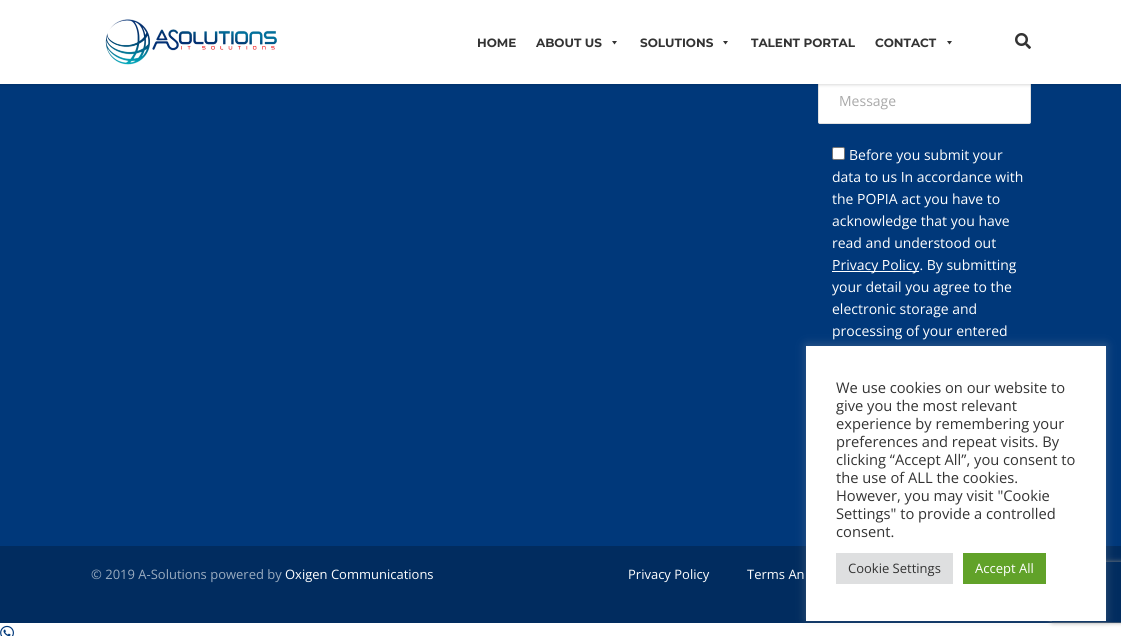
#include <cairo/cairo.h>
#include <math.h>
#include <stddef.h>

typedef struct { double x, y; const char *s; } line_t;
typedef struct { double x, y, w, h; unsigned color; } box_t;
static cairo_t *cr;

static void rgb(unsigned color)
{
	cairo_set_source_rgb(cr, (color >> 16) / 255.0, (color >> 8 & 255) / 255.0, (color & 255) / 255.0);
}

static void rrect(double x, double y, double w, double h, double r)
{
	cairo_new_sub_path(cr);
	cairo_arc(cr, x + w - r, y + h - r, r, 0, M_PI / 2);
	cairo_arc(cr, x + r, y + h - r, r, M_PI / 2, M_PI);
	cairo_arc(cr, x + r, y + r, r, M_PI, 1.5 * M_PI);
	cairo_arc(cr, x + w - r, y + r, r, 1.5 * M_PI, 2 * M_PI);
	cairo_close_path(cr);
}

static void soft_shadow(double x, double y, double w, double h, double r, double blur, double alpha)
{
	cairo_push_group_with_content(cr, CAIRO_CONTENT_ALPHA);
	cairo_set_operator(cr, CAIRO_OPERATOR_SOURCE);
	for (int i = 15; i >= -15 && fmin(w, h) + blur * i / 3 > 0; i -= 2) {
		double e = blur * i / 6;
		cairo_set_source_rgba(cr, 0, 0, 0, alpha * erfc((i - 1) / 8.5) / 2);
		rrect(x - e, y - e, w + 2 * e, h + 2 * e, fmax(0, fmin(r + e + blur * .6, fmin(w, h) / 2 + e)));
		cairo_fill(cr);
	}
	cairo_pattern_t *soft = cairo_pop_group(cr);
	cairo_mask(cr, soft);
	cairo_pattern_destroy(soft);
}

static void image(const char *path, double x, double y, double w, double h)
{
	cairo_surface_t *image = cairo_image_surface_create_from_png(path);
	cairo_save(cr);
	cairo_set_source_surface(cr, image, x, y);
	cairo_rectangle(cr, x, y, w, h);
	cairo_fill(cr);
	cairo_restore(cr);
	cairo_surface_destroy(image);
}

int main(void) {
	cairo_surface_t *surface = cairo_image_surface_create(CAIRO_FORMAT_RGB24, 1121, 636);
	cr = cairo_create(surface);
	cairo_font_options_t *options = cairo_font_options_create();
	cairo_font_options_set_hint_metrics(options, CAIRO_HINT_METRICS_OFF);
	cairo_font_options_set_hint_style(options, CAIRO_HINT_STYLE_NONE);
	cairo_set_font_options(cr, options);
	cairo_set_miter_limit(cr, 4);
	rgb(0xffffff);
	cairo_paint(cr);
	rgb(0x00387a);
	cairo_rectangle(cr, 0, 84, 1121, 462);
	cairo_fill(cr);
	rgb(0xffffff);
	rrect(818.5, 78.5, 212, 45, 1.5);
	cairo_fill_preserve(cr);
	rgb(0xe2e2e2);
	cairo_set_line_width(cr, 1);
	cairo_stroke(cr);
	rgb(0x000000);
	soft_shadow(0, 1, 1121, 84, 0, 1.5, 0.15);
	rgb(0xffffff);
	cairo_rectangle(cr, 0, 0, 1121, 84);
	cairo_fill(cr);
	image("img/1.png", 105, 19, 172, 46);
	rgb(0x333333);
	cairo_new_path(cr);
	cairo_move_to(cr, 617, 41);
	cairo_line_to(cr, 614.5, 44.5);
	cairo_line_to(cr, 612, 41);
	cairo_close_path(cr);
	cairo_fill(cr);
	cairo_new_path(cr);
	cairo_move_to(cr, 728, 41);
	cairo_line_to(cr, 725.5, 44.5);
	cairo_line_to(cr, 723, 41);
	cairo_close_path(cr);
	cairo_fill(cr);
	cairo_new_path(cr);
	cairo_move_to(cr, 952, 41);
	cairo_line_to(cr, 949.5, 44.5);
	cairo_line_to(cr, 947, 41);
	cairo_close_path(cr);
	cairo_fill(cr);
	image("img/2.png", 1015, 33, 16, 16);
	rgb(0xffffff);
	rrect(832.5, 147.5, 12, 12, 1.5);
	cairo_fill_preserve(cr);
	rgb(0x767676);
	cairo_stroke(cr);
	rgb(0xffffff);
	cairo_rectangle(cr, 832, 271, 87, 1);
	cairo_fill(cr);
	rgb(0x012c5f);
	cairo_rectangle(cr, 0, 546, 1121, 77);
	cairo_fill(cr);
	rgb(0xacabab);
	soft_shadow(806, 345, 300, 275, 0, 5, 0.3);
	cairo_save(cr);
	cairo_set_fill_rule(cr, CAIRO_FILL_RULE_EVEN_ODD);
	cairo_new_path(cr);
	cairo_move_to(cr, 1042, 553);
	cairo_line_to(cr, 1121, 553);
	cairo_line_to(cr, 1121, 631);
	cairo_line_to(cr, 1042, 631);
	cairo_close_path(cr);
	cairo_move_to(cr, 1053, 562);
	cairo_line_to(cr, 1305, 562);
	cairo_curve_to(cr, 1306, 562, 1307, 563, 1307, 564);
	cairo_line_to(cr, 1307, 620);
	cairo_curve_to(cr, 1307, 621, 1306, 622, 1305, 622);
	cairo_line_to(cr, 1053, 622);
	cairo_curve_to(cr, 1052, 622, 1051, 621, 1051, 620);
	cairo_line_to(cr, 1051, 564);
	cairo_curve_to(cr, 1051, 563, 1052, 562, 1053, 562);
	cairo_close_path(cr);
	cairo_clip(cr);
	rgb(0x808080);
	soft_shadow(1051, 562, 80, 60, 2, 2.5, 1);
	cairo_restore(cr);
	{
		static const box_t items[] = {
			{806, 346, 300, 275, 0xffffff},
			{836, 553, 117, 31, 0xdedfe0},
			{963, 553, 83, 31, 0x61a229},
		};
		for (size_t i = 0; i < sizeof items / sizeof *items; i++) {
			rgb(items[i].color);
			cairo_rectangle(cr, items[i].x, items[i].y, items[i].w, items[i].h);
			cairo_fill(cr);
		}
	}
	image("img/3.png", 0, 625, 14, 11);
	cairo_select_font_face(cr, "Montserrat", CAIRO_FONT_SLANT_NORMAL, CAIRO_FONT_WEIGHT_BOLD);
	cairo_set_font_size(cr, 12);
	rgb(0x333333);
	{
		static const line_t items[] = {
			{477, 47, "HOME"},
			{536, 47, "ABOUT US"},
			{640, 47, "SOLUTIONS"},
			{751, 47, "TALENT PORTAL"},
			{875, 47, "CONTACT"},
		};
		for (size_t i = 0; i < sizeof items / sizeof *items; i++) {
			cairo_move_to(cr, items[i].x, items[i].y);
			cairo_show_text(cr, items[i].s);
		}
	}
	cairo_select_font_face(cr, "Open Sans", CAIRO_FONT_SLANT_NORMAL, CAIRO_FONT_WEIGHT_NORMAL);
	cairo_set_font_size(cr, 14);
	rgb(0xa9a9a9);
	cairo_move_to(cr, 839, 106);
	cairo_show_text(cr, "Message");
	rgb(0xffffff);
	{
		static const line_t items[] = {
			{849, 160, "Before you submit your"},
			{832, 182, "data to us In accordance with"},
			{832, 204, "the POPIA act you have to"},
			{832, 226, "acknowledge that you have"},
			{832, 248, "read and understood out"},
			{832, 270, "Privacy Policy. By submitting"},
			{832, 292, "your detail you agree to the"},
			{832, 314, "electronic storage and"},
			{832, 336, "processing of your entered"},
		};
		for (size_t i = 0; i < sizeof items / sizeof *items; i++) {
			cairo_move_to(cr, items[i].x, items[i].y);
			cairo_show_text(cr, items[i].s);
		}
	}
	cairo_set_font_size(cr, 13);
	rgb(0x99abbf);
	cairo_move_to(cr, 91, 579);
	cairo_show_text(cr, "© 2019 A-Solutions powered by");
	rgb(0xffffff);
	{
		static const line_t items[] = {
			{285, 579, "Oxigen Communications"},
			{628, 579, "Privacy Policy"},
			{747, 579, "Terms An"},
		};
		for (size_t i = 0; i < sizeof items / sizeof *items; i++) {
			cairo_move_to(cr, items[i].x, items[i].y);
			cairo_show_text(cr, items[i].s);
		}
	}
	cairo_set_font_size(cr, 14.7);
	rgb(0x333333);
	{
		static const line_t items[] = {
			{836, 393, "We use cookies on our website to"},
			{836, 411, "give you the most relevant"},
			{836, 429, "experience by remembering your"},
			{836, 447, "preferences and repeat visits. By"},
			{836, 465, "clicking “Accept All”, you consent to"},
			{836, 483, "the use of ALL the cookies."},
			{836, 501, "However, you may visit \"Cookie"},
			{836, 519, "Settings\" to provide a controlled"},
			{836, 537, "consent."},
		};
		for (size_t i = 0; i < sizeof items / sizeof *items; i++) {
			cairo_move_to(cr, items[i].x, items[i].y);
			cairo_show_text(cr, items[i].s);
		}
	}
	cairo_set_font_size(cr, 13);
	cairo_move_to(cr, 848, 573);
	cairo_show_text(cr, "Cookie Settings");
	rgb(0xffffff);
	cairo_move_to(cr, 975, 573);
	cairo_show_text(cr, "Accept All");
	cairo_surface_write_to_png(surface, "page.png");
	cairo_font_options_destroy(options);
	cairo_destroy(cr);
	cairo_surface_destroy(surface);
	return 0;
}
